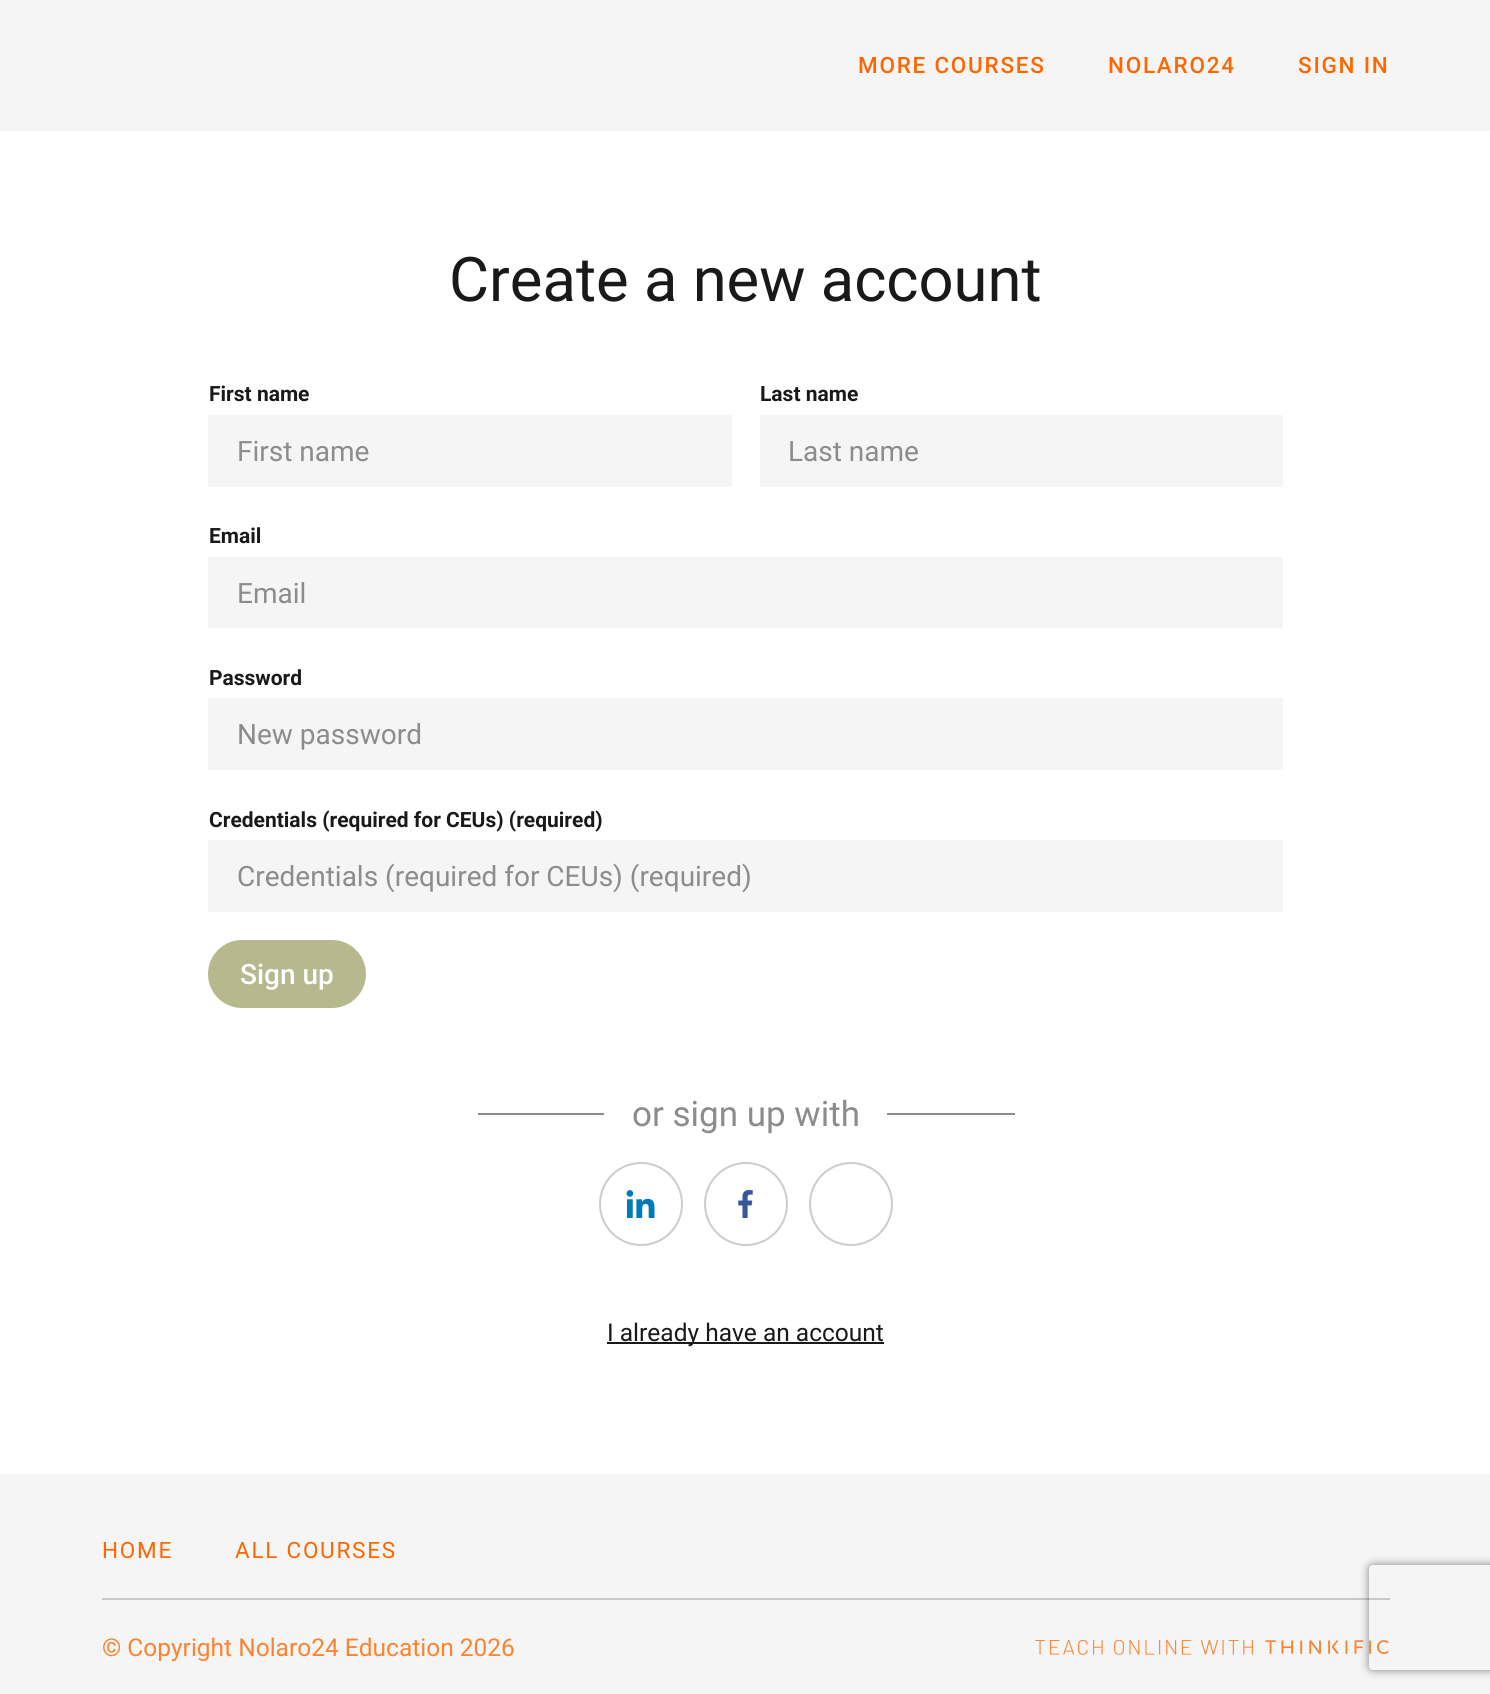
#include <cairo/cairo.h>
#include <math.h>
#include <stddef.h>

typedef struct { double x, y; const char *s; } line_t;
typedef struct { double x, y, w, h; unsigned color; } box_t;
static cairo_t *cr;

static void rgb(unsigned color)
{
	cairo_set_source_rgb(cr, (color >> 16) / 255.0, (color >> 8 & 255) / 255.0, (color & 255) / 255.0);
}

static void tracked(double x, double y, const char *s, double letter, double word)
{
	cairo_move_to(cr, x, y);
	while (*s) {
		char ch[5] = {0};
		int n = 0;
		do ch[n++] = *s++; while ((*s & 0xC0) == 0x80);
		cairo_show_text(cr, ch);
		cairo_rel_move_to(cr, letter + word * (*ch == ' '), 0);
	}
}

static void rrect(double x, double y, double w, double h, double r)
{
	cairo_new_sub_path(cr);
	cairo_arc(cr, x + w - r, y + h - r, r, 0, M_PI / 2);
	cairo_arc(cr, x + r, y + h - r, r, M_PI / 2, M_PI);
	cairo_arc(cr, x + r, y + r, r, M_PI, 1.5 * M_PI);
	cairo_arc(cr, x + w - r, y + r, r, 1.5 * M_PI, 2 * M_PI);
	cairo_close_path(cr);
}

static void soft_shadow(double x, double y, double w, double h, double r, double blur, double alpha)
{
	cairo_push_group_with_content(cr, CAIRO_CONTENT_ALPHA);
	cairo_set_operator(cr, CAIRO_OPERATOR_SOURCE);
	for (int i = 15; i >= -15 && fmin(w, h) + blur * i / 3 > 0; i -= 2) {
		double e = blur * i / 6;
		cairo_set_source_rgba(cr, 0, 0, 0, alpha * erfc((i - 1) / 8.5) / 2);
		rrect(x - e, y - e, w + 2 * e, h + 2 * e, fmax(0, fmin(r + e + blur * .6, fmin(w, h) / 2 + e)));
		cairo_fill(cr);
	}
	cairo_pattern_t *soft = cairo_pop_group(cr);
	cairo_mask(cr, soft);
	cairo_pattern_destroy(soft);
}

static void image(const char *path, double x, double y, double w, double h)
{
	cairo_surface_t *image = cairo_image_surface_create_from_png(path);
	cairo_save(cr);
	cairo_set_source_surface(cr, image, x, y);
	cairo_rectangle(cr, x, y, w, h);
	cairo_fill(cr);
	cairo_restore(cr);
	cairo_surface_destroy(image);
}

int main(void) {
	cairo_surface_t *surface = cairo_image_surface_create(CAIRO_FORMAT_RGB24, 1490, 1694);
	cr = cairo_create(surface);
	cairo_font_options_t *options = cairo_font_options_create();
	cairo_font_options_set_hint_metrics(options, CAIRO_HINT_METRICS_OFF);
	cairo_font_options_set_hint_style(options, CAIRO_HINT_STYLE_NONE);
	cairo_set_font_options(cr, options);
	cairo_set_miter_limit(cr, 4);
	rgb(0xffffff);
	cairo_paint(cr);
	{
		static const box_t items[] = {
			{0, 0, 1490, 131, 0xf5f5f5},
			{208, 415, 524, 72, 0xf5f5f5},
			{760, 415, 523, 72, 0xf5f5f5},
			{208, 557, 1075, 71, 0xf5f5f5},
			{208, 698, 1075, 72, 0xf5f5f5},
			{208, 840, 1075, 72, 0xf5f5f5},
		};
		for (size_t i = 0; i < sizeof items / sizeof *items; i++) {
			rgb(items[i].color);
			cairo_rectangle(cr, items[i].x, items[i].y, items[i].w, items[i].h);
			cairo_fill(cr);
		}
	}
	rgb(0xb8b88f);
	rrect(210, 942, 154, 64, 32);
	cairo_fill_preserve(cr);
	cairo_set_line_width(cr, 4);
	cairo_stroke(cr);
	rgb(0xf5f5f5);
	cairo_rectangle(cr, 0, 1474, 1490, 220);
	cairo_fill(cr);
	cairo_save(cr);
	cairo_set_fill_rule(cr, CAIRO_FILL_RULE_EVEN_ODD);
	cairo_new_path(cr);
	cairo_move_to(cr, 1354, 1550);
	cairo_line_to(cr, 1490, 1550);
	cairo_line_to(cr, 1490, 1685);
	cairo_line_to(cr, 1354, 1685);
	cairo_close_path(cr);
	cairo_move_to(cr, 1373, 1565);
	cairo_line_to(cr, 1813, 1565);
	cairo_curve_to(cr, 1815, 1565, 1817, 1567, 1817, 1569);
	cairo_line_to(cr, 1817, 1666);
	cairo_curve_to(cr, 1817, 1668, 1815, 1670, 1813, 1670);
	cairo_line_to(cr, 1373, 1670);
	cairo_curve_to(cr, 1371, 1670, 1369, 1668, 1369, 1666);
	cairo_line_to(cr, 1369, 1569);
	cairo_curve_to(cr, 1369, 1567, 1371, 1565, 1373, 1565);
	cairo_close_path(cr);
	cairo_clip(cr);
	rgb(0x808080);
	soft_shadow(1369, 1565, 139, 105, 4, 4.5, 1);
	cairo_restore(cr);
	rgb(0x8c8c8c);
	cairo_rectangle(cr, 478, 1113, 537, 2);
	cairo_fill(cr);
	rgb(0xffffff);
	cairo_rectangle(cr, 604, 1113, 283, 2);
	cairo_fill(cr);
	cairo_arc(cr, 641, 1204, 41, 0, 2 * M_PI);
	rgb(0xcacccd);
	cairo_set_line_width(cr, 2);
	cairo_stroke(cr);
	image("img/1.png", 626, 1190, 29, 28);
	cairo_arc(cr, 746, 1204, 41, 0, 2 * M_PI);
	cairo_stroke(cr);
	image("img/2.png", 738, 1190, 15, 28);
	cairo_arc(cr, 851, 1204, 41, 0, 2 * M_PI);
	cairo_stroke(cr);
	rgb(0x191919);
	cairo_rectangle(cr, 607, 1342, 277, 2);
	cairo_fill(cr);
	cairo_set_source_rgba(cr, 0.098, 0.098, 0.098, 0.2);
	cairo_rectangle(cr, 102, 1598, 1288, 2);
	cairo_fill(cr);
	image("img/3.png", 1035, 1640, 354, 15);
	cairo_select_font_face(cr, "Roboto Medium", CAIRO_FONT_SLANT_NORMAL, CAIRO_FONT_WEIGHT_NORMAL);
	cairo_set_font_size(cr, 22.5);
	rgb(0xff6600);
	{
		static const line_t items[] = {
			{858, 73, "MORE COURSES"},
			{1108, 73, "NOLARO24"},
			{1298, 73, "SIGN IN"},
		};
		for (size_t i = 0; i < sizeof items / sizeof *items; i++) {
			tracked(items[i].x, items[i].y, items[i].s, 1.75, 0);
		}
	}
	cairo_select_font_face(cr, "Roboto", CAIRO_FONT_SLANT_NORMAL, CAIRO_FONT_WEIGHT_NORMAL);
	cairo_set_font_size(cr, 61.5);
	rgb(0x191919);
	cairo_move_to(cr, 449, 301);
	cairo_show_text(cr, "Create a new account");
	cairo_select_font_face(cr, "Roboto", CAIRO_FONT_SLANT_NORMAL, CAIRO_FONT_WEIGHT_BOLD);
	cairo_set_font_size(cr, 21);
	cairo_move_to(cr, 209, 401);
	cairo_show_text(cr, "First name");
	cairo_select_font_face(cr, "Roboto", CAIRO_FONT_SLANT_NORMAL, CAIRO_FONT_WEIGHT_NORMAL);
	cairo_set_font_size(cr, 28);
	rgb(0x8c8c8c);
	cairo_move_to(cr, 237, 461);
	cairo_show_text(cr, "First name");
	cairo_select_font_face(cr, "Roboto", CAIRO_FONT_SLANT_NORMAL, CAIRO_FONT_WEIGHT_BOLD);
	cairo_set_font_size(cr, 21);
	rgb(0x191919);
	cairo_move_to(cr, 760, 401);
	cairo_show_text(cr, "Last name");
	cairo_select_font_face(cr, "Roboto", CAIRO_FONT_SLANT_NORMAL, CAIRO_FONT_WEIGHT_NORMAL);
	cairo_set_font_size(cr, 28);
	rgb(0x8c8c8c);
	cairo_move_to(cr, 788, 461);
	cairo_show_text(cr, "Last name");
	cairo_select_font_face(cr, "Roboto", CAIRO_FONT_SLANT_NORMAL, CAIRO_FONT_WEIGHT_BOLD);
	cairo_set_font_size(cr, 21);
	rgb(0x191919);
	cairo_move_to(cr, 209, 543);
	cairo_show_text(cr, "Email");
	cairo_select_font_face(cr, "Roboto", CAIRO_FONT_SLANT_NORMAL, CAIRO_FONT_WEIGHT_NORMAL);
	cairo_set_font_size(cr, 28);
	rgb(0x8c8c8c);
	cairo_move_to(cr, 237, 603);
	cairo_show_text(cr, "Email");
	cairo_select_font_face(cr, "Roboto", CAIRO_FONT_SLANT_NORMAL, CAIRO_FONT_WEIGHT_BOLD);
	cairo_set_font_size(cr, 21);
	rgb(0x191919);
	cairo_move_to(cr, 209, 685);
	cairo_show_text(cr, "Password");
	cairo_select_font_face(cr, "Roboto", CAIRO_FONT_SLANT_NORMAL, CAIRO_FONT_WEIGHT_NORMAL);
	cairo_set_font_size(cr, 28);
	rgb(0x8c8c8c);
	cairo_move_to(cr, 237, 744);
	cairo_show_text(cr, "New password");
	cairo_select_font_face(cr, "Roboto", CAIRO_FONT_SLANT_NORMAL, CAIRO_FONT_WEIGHT_BOLD);
	cairo_set_font_size(cr, 21);
	rgb(0x191919);
	cairo_move_to(cr, 209, 827);
	cairo_show_text(cr, "Credentials (required for CEUs) (required)");
	cairo_select_font_face(cr, "Roboto", CAIRO_FONT_SLANT_NORMAL, CAIRO_FONT_WEIGHT_NORMAL);
	cairo_set_font_size(cr, 28);
	rgb(0x8c8c8c);
	cairo_move_to(cr, 237, 886);
	cairo_show_text(cr, "Credentials (required for CEUs) (required)");
	cairo_select_font_face(cr, "Roboto Medium", CAIRO_FONT_SLANT_NORMAL, CAIRO_FONT_WEIGHT_NORMAL);
	rgb(0xffffff);
	cairo_move_to(cr, 240, 984);
	cairo_show_text(cr, "Sign up");
	cairo_select_font_face(cr, "Roboto", CAIRO_FONT_SLANT_NORMAL, CAIRO_FONT_WEIGHT_NORMAL);
	cairo_set_font_size(cr, 35);
	rgb(0x8c8c8c);
	cairo_move_to(cr, 632, 1126);
	cairo_show_text(cr, "or sign up with");
	cairo_set_font_size(cr, 24.5);
	rgb(0x191919);
	cairo_move_to(cr, 607, 1341);
	cairo_show_text(cr, "I already have an account");
	cairo_set_font_size(cr, 22.5);
	rgb(0xff6600);
	tracked(102, 1558, "HOME", 1.75, 0);
	tracked(235, 1558, "ALL COURSES", 1.75, 0);
	cairo_set_font_size(cr, 24.5);
	rgb(0xfd8331);
	cairo_move_to(cr, 102, 1656);
	cairo_show_text(cr, "© Copyright Nolaro24 Education 2026");
	cairo_surface_write_to_png(surface, "page.png");
	cairo_font_options_destroy(options);
	cairo_destroy(cr);
	cairo_surface_destroy(surface);
	return 0;
}
